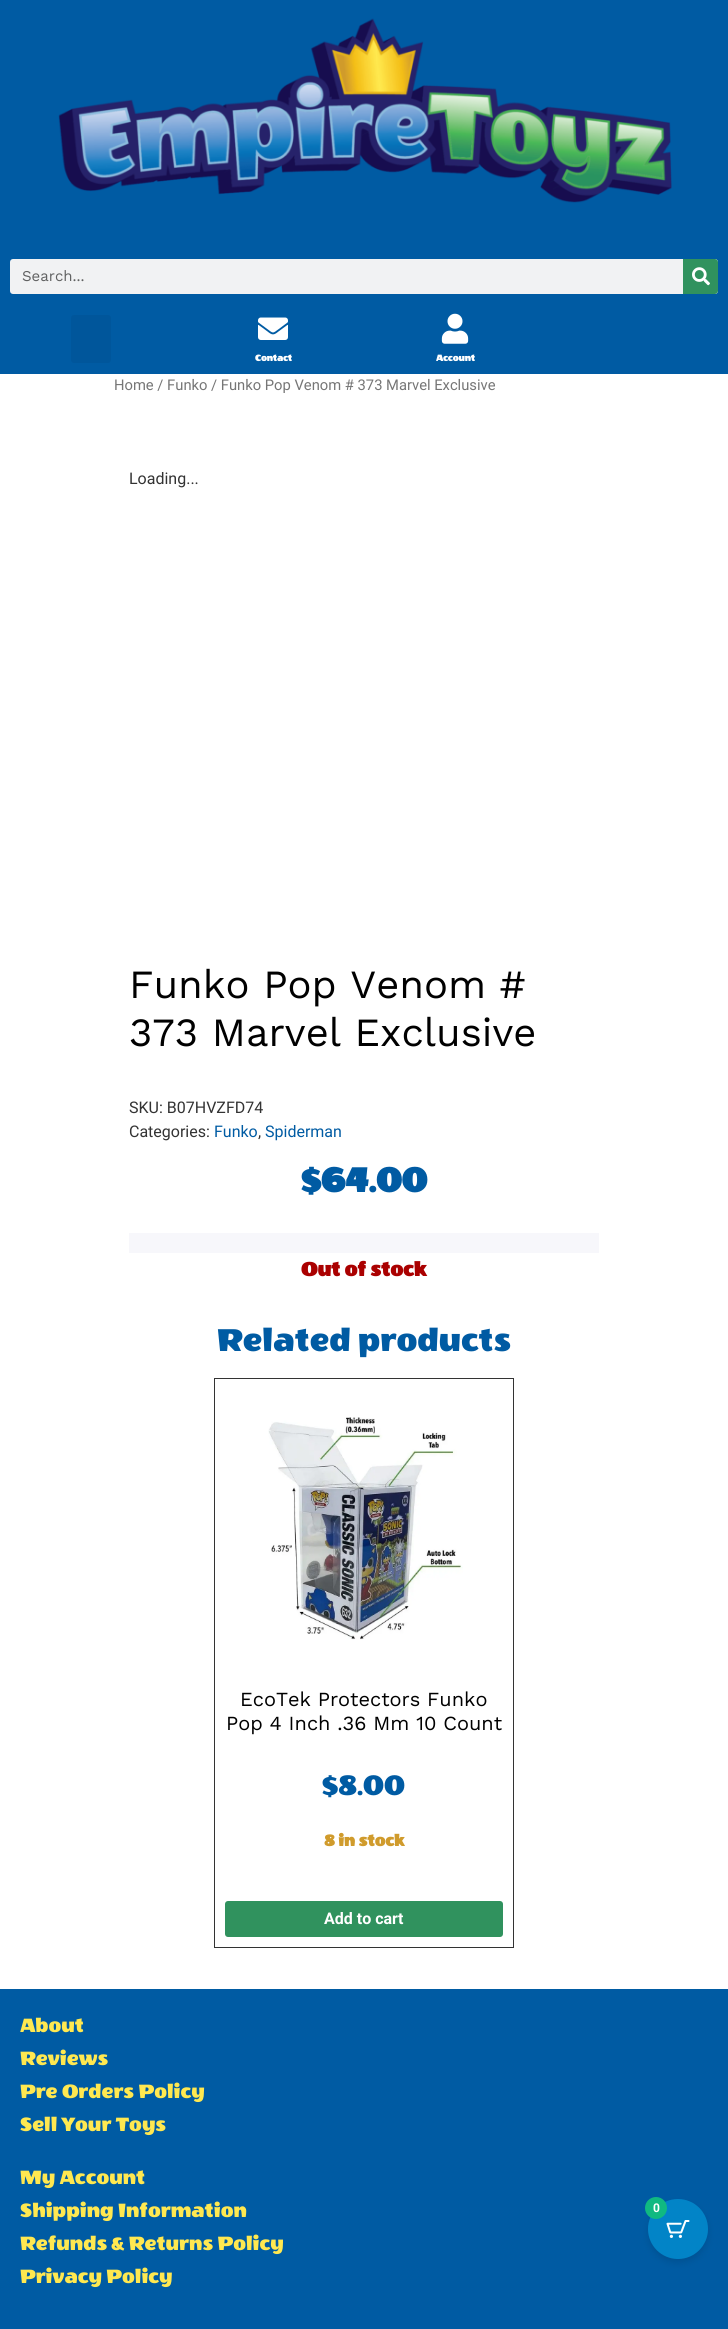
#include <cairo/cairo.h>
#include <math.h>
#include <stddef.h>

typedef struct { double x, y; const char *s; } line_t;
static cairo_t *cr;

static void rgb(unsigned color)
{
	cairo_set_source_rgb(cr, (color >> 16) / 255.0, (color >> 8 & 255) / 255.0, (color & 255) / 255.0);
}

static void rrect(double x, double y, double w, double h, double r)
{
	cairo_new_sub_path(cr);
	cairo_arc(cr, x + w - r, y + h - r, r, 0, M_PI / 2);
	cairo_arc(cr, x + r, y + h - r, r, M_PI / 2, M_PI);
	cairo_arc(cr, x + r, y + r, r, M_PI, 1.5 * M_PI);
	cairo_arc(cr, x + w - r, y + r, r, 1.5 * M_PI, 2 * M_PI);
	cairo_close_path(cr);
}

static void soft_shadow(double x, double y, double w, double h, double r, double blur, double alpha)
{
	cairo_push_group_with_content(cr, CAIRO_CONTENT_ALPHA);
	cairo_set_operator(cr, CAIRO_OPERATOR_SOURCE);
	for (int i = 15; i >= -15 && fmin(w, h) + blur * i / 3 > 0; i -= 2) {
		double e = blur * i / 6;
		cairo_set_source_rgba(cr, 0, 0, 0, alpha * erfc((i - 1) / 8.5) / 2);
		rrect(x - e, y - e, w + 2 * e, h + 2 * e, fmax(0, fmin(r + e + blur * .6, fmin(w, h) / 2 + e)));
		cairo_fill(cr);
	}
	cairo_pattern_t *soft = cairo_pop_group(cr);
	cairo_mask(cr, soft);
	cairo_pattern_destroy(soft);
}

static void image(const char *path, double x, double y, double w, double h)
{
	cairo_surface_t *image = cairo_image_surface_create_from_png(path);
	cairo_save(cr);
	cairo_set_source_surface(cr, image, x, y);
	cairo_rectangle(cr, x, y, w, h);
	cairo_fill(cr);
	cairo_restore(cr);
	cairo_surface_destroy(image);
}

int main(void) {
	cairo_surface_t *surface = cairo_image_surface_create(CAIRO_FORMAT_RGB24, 728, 2329);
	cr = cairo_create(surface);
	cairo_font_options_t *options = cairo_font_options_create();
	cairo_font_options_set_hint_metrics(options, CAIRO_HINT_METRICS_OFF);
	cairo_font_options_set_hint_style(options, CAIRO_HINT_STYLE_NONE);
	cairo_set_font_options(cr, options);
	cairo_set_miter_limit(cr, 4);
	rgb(0xffffff);
	cairo_paint(cr);
	rgb(0x005ba3);
	cairo_rectangle(cr, 0, 0, 728, 374);
	cairo_fill(cr);
	image("img/1.png", 58, 18, 614, 185);
	rgb(0xf1f2f3);
	rrect(10, 259, 708, 35, 3);
	cairo_fill(cr);
	rgb(0x30925e);
	cairo_new_path(cr);
	cairo_move_to(cr, 683, 259);
	cairo_line_to(cr, 715, 259);
	cairo_curve_to(cr, 716.5, 259, 718, 260.5, 718, 262);
	cairo_line_to(cr, 718, 291);
	cairo_curve_to(cr, 718, 292.5, 716.5, 294, 715, 294);
	cairo_line_to(cr, 683, 294);
	cairo_close_path(cr);
	cairo_fill(cr);
	image("img/2.png", 692, 267, 18, 19);
	rgb(0x00569b);
	rrect(71, 315, 40, 48, 3);
	cairo_fill(cr);
	image("img/3.png", 258, 317, 30, 23);
	image("img/4.png", 441, 313, 28, 31);
	rgb(0xf7f7fb);
	cairo_rectangle(cr, 129, 1233, 470, 20);
	cairo_fill(cr);
	cairo_rectangle(cr, 214.5, 1378.5, 299, 569);
	rgb(0x333333);
	cairo_set_line_width(cr, 1);
	cairo_stroke(cr);
	image("img/5.png", 268, 1417, 195, 223);
	rgb(0x30925e);
	rrect(225, 1901, 278, 36, 3);
	cairo_fill(cr);
	rgb(0x005ba3);
	cairo_rectangle(cr, 0, 1989, 728, 340);
	cairo_fill(cr);
	rgb(0x000000);
	soft_shadow(648, 2203, 60, 60, 30, 3.5, 0.1);
	rgb(0x0284c7);
	cairo_arc(cr, 678, 2229, 30, 0, 2 * M_PI);
	cairo_fill(cr);
	rgb(0x10b981);
	cairo_arc(cr, 656, 2208, 11, 0, 2 * M_PI);
	cairo_fill(cr);
	image("img/6.png", 666, 2220, 24, 18);
	cairo_select_font_face(cr, "Work Sans", CAIRO_FONT_SLANT_NORMAL, CAIRO_FONT_WEIGHT_NORMAL);
	cairo_set_font_size(cr, 15);
	rgb(0x606161);
	cairo_move_to(cr, 22, 281);
	cairo_show_text(cr, "Search...");
	cairo_select_font_face(cr, "Wendy One", CAIRO_FONT_SLANT_NORMAL, CAIRO_FONT_WEIGHT_BOLD);
	cairo_set_font_size(cr, 10);
	rgb(0xffffff);
	cairo_move_to(cr, 255, 361);
	cairo_show_text(cr, "Contact");
	cairo_move_to(cr, 436, 361);
	cairo_show_text(cr, "Account");
	cairo_select_font_face(cr, "Roboto", CAIRO_FONT_SLANT_NORMAL, CAIRO_FONT_WEIGHT_NORMAL);
	cairo_set_font_size(cr, 14.75);
	rgb(0x767676);
	cairo_move_to(cr, 114, 390);
	cairo_show_text(cr, "Home / Funko / Funko Pop Venom # 373 Marvel Exclusive");
	cairo_set_font_size(cr, 16);
	rgb(0x333333);
	cairo_move_to(cr, 129, 484);
	cairo_show_text(cr, "Loading...");
	cairo_select_font_face(cr, "Work Sans", CAIRO_FONT_SLANT_NORMAL, CAIRO_FONT_WEIGHT_NORMAL);
	cairo_set_font_size(cr, 40);
	rgb(0x000000);
	cairo_move_to(cr, 129, 998);
	cairo_show_text(cr, "Funko Pop Venom #");
	cairo_move_to(cr, 129, 1046);
	cairo_show_text(cr, "373 Marvel Exclusive");
	cairo_select_font_face(cr, "Roboto", CAIRO_FONT_SLANT_NORMAL, CAIRO_FONT_WEIGHT_NORMAL);
	cairo_set_font_size(cr, 16);
	rgb(0x333333);
	cairo_move_to(cr, 129, 1113);
	cairo_show_text(cr, "SKU: B07HVZFD74");
	cairo_move_to(cr, 129, 1137);
	cairo_show_text(cr, "Categories:");
	rgb(0x005ba3);
	cairo_move_to(cr, 214, 1137);
	cairo_show_text(cr, "Funko");
	rgb(0x333333);
	cairo_move_to(cr, 258, 1137);
	cairo_show_text(cr, ",");
	rgb(0x005ba3);
	cairo_move_to(cr, 265, 1137);
	cairo_show_text(cr, "Spiderman");
	cairo_select_font_face(cr, "Wendy One", CAIRO_FONT_SLANT_NORMAL, CAIRO_FONT_WEIGHT_BOLD);
	cairo_set_font_size(cr, 39);
	cairo_move_to(cr, 301, 1192);
	cairo_show_text(cr, "$64.00");
	cairo_set_font_size(cr, 22);
	rgb(0xaa0000);
	cairo_move_to(cr, 301, 1276);
	cairo_show_text(cr, "Out of stock");
	cairo_select_font_face(cr, "Wendy One", CAIRO_FONT_SLANT_NORMAL, CAIRO_FONT_WEIGHT_NORMAL);
	cairo_set_font_size(cr, 36);
	rgb(0x005ba3);
	cairo_move_to(cr, 217, 1351);
	cairo_show_text(cr, "Related products");
	cairo_select_font_face(cr, "Work Sans", CAIRO_FONT_SLANT_NORMAL, CAIRO_FONT_WEIGHT_NORMAL);
	cairo_set_font_size(cr, 20);
	rgb(0x000000);
	cairo_move_to(cr, 240, 1706);
	cairo_show_text(cr, "EcoTek Protectors Funko");
	cairo_move_to(cr, 226, 1730);
	cairo_show_text(cr, "Pop 4 Inch .36 Mm 10 Count");
	cairo_select_font_face(cr, "Wendy One", CAIRO_FONT_SLANT_NORMAL, CAIRO_FONT_WEIGHT_NORMAL);
	cairo_set_font_size(cr, 32);
	rgb(0x005ba3);
	cairo_move_to(cr, 322, 1795);
	cairo_show_text(cr, "$8.00");
	cairo_select_font_face(cr, "Wendy One", CAIRO_FONT_SLANT_NORMAL, CAIRO_FONT_WEIGHT_BOLD);
	cairo_set_font_size(cr, 18);
	rgb(0xd09b2c);
	cairo_move_to(cr, 324, 1846);
	cairo_show_text(cr, "8 in stock");
	cairo_select_font_face(cr, "Roboto", CAIRO_FONT_SLANT_NORMAL, CAIRO_FONT_WEIGHT_BOLD);
	cairo_set_font_size(cr, 16);
	rgb(0xffffff);
	cairo_move_to(cr, 324, 1924);
	cairo_show_text(cr, "Add to cart");
	cairo_select_font_face(cr, "Wendy One", CAIRO_FONT_SLANT_NORMAL, CAIRO_FONT_WEIGHT_NORMAL);
	cairo_set_font_size(cr, 22);
	rgb(0xffe850);
	{
		static const line_t items[] = {
			{20, 2032, "About"},
			{20, 2065, "Reviews"},
			{20, 2098, "Pre Orders Policy"},
			{20, 2131, "Sell Your Toys"},
			{20, 2184, "My Account"},
			{20, 2217, "Shipping Information"},
			{20, 2250, "Refunds & Returns Policy"},
			{20, 2283, "Privacy Policy"},
		};
		for (size_t i = 0; i < sizeof items / sizeof *items; i++) {
			cairo_move_to(cr, items[i].x, items[i].y);
			cairo_show_text(cr, items[i].s);
		}
	}
	cairo_select_font_face(cr, "Roboto", CAIRO_FONT_SLANT_NORMAL, CAIRO_FONT_WEIGHT_BOLD);
	cairo_set_font_size(cr, 12);
	rgb(0xffffff);
	cairo_move_to(cr, 653, 2212);
	cairo_show_text(cr, "0");
	cairo_surface_write_to_png(surface, "page.png");
	cairo_font_options_destroy(options);
	cairo_destroy(cr);
	cairo_surface_destroy(surface);
	return 0;
}
